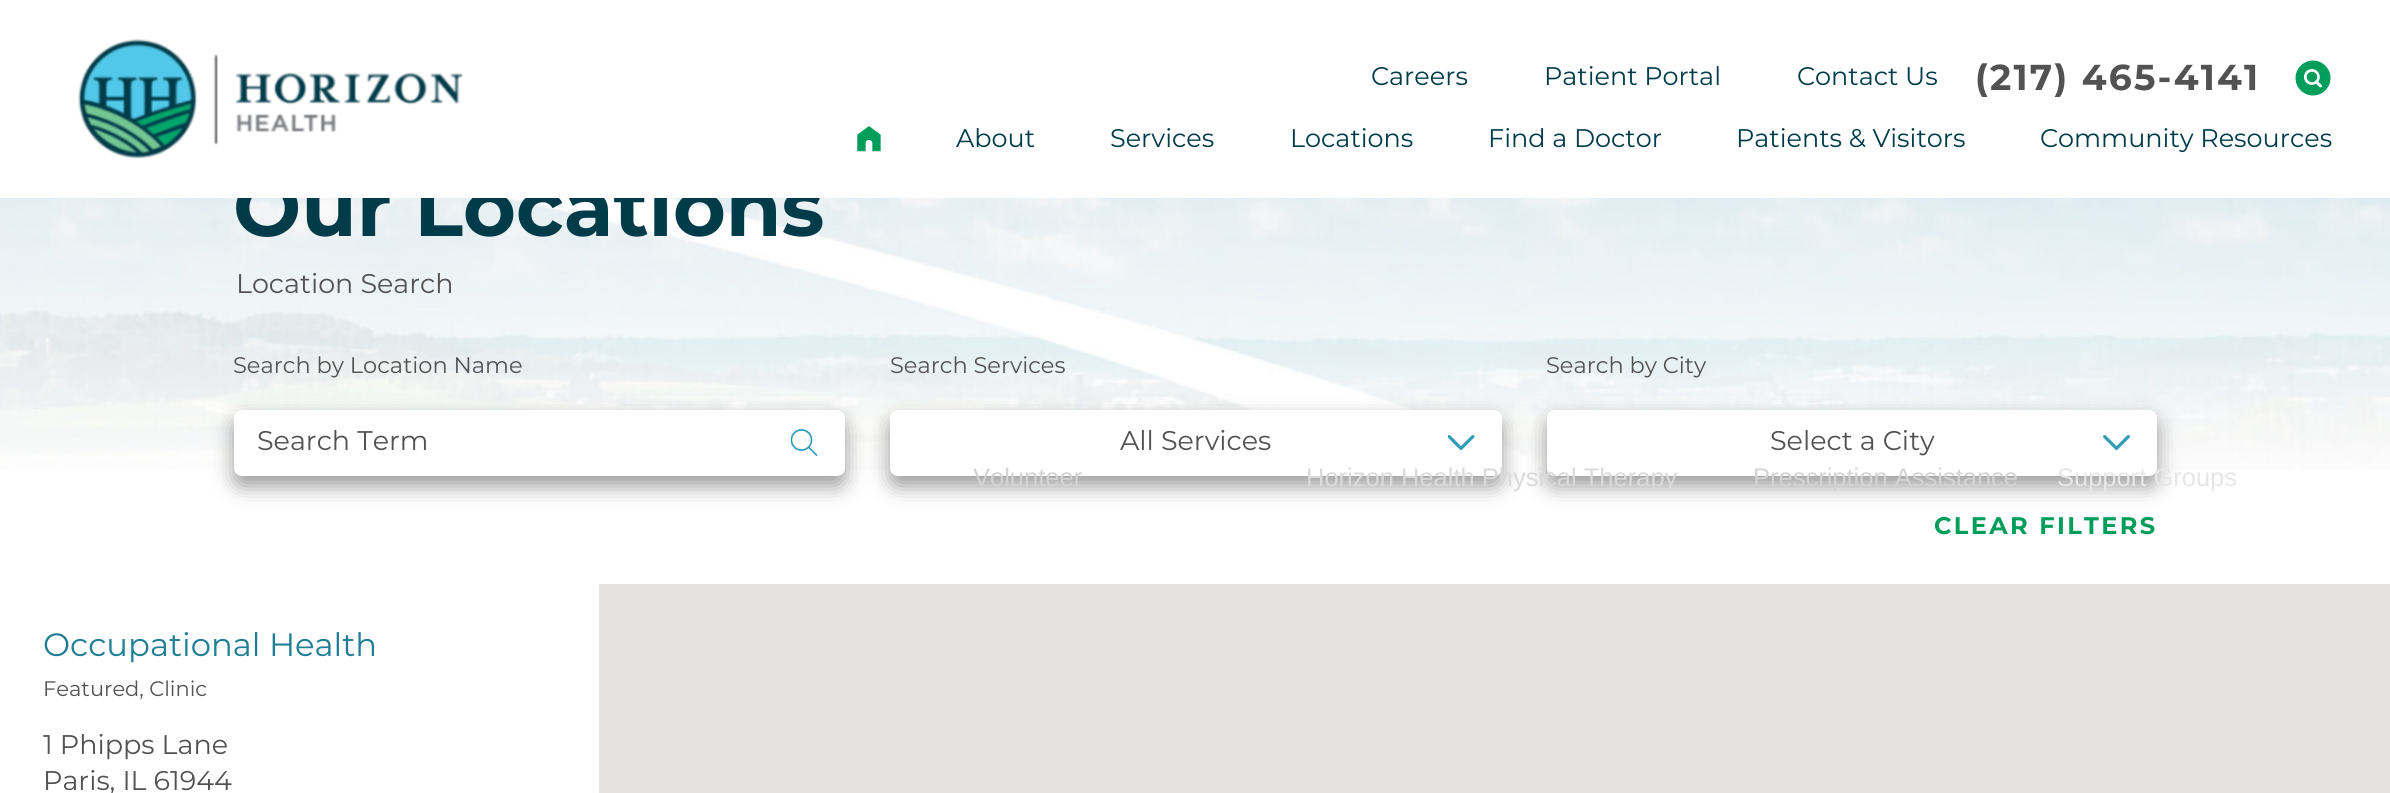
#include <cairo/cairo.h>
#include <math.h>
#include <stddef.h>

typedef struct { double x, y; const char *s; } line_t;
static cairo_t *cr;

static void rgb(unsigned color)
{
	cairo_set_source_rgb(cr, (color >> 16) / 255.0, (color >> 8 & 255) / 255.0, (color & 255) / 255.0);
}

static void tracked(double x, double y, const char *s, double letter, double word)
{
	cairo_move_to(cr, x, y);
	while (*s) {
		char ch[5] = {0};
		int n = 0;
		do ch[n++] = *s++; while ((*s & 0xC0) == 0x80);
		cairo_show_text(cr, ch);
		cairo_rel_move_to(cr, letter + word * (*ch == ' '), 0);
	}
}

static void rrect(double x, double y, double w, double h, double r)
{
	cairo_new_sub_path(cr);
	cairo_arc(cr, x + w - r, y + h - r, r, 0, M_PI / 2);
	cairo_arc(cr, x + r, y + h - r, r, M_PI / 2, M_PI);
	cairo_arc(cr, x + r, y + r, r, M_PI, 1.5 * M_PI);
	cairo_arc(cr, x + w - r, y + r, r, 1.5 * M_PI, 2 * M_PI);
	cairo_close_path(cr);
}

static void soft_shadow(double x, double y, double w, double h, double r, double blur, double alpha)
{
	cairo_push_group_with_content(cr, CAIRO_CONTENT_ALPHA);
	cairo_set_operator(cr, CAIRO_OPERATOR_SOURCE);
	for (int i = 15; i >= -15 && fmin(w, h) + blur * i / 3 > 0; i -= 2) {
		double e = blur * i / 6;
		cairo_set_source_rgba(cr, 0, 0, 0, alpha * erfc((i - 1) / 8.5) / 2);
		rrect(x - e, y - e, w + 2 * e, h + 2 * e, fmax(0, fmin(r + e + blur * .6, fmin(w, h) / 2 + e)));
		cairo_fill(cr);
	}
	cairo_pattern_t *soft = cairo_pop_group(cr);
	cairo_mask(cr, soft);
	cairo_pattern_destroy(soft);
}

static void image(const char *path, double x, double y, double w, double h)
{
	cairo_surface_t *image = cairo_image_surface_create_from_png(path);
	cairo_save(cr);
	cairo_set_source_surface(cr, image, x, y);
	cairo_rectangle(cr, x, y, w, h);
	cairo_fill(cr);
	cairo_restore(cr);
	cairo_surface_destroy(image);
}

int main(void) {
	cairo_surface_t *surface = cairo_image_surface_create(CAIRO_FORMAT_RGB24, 2390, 793);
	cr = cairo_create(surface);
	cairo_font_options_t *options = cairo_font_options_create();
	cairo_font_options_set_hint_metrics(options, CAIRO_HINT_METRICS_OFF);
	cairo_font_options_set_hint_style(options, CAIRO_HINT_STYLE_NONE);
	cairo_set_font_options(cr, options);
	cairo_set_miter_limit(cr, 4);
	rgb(0xffffff);
	cairo_paint(cr);
	image("img/1.png", 78, 39, 385, 120);
	image("img/2.png", 2295, 60, 36, 36);
	image("img/3.png", 857, 126, 24, 26);
	image("img/4.png", 0, 198, 2390, 272);
	rgb(0x000000);
	soft_shadow(234, 420, 611, 66, 8, 10.5, 0.4);
	rgb(0xffffff);
	rrect(234, 410, 611, 66, 8);
	cairo_fill(cr);
	image("img/5.png", 791, 429, 27, 27);
	rgb(0x000000);
	soft_shadow(890, 420, 612, 66, 8, 10.5, 0.4);
	rgb(0xffffff);
	rrect(890, 410, 612, 66, 8);
	cairo_fill(cr);
	image("img/6.png", 1448, 435, 27, 15);
	rgb(0x000000);
	soft_shadow(1547, 420, 610, 66, 8, 10.5, 0.4);
	rgb(0xffffff);
	rrect(1547, 410, 610, 66, 8);
	cairo_fill(cr);
	image("img/7.png", 2103, 435, 27, 15);
	rgb(0xe5e3df);
	cairo_rectangle(cr, 599, 584, 1791, 209);
	cairo_fill(cr);
	cairo_select_font_face(cr, "Montserrat", CAIRO_FONT_SLANT_NORMAL, CAIRO_FONT_WEIGHT_NORMAL);
	cairo_set_font_size(cr, 25.5);
	rgb(0x003b49);
	{
		static const line_t items[] = {
			{1371, 85, "Careers"},
			{1544, 85, "Patient Portal"},
			{1797, 85, "Contact Us"},
		};
		for (size_t i = 0; i < sizeof items / sizeof *items; i++) {
			cairo_move_to(cr, items[i].x, items[i].y);
			cairo_show_text(cr, items[i].s);
		}
	}
	cairo_select_font_face(cr, "Montserrat", CAIRO_FONT_SLANT_NORMAL, CAIRO_FONT_WEIGHT_BOLD);
	cairo_set_font_size(cr, 36);
	rgb(0x525252);
	tracked(1975, 90, "(217) 465-4141", 2.2, 0);
	cairo_select_font_face(cr, "Montserrat", CAIRO_FONT_SLANT_NORMAL, CAIRO_FONT_WEIGHT_NORMAL);
	cairo_set_font_size(cr, 25.5);
	rgb(0x003b49);
	cairo_move_to(cr, 956, 147);
	cairo_show_text(cr, "About");
	cairo_select_font_face(cr, "Liberation Sans", CAIRO_FONT_SLANT_NORMAL, CAIRO_FONT_WEIGHT_NORMAL);
	rgb(0xd3d3d3);
	cairo_move_to(cr, 973, 486);
	cairo_show_text(cr, "Volunteer");
	cairo_select_font_face(cr, "Montserrat", CAIRO_FONT_SLANT_NORMAL, CAIRO_FONT_WEIGHT_NORMAL);
	rgb(0x003b49);
	cairo_move_to(cr, 1110, 147);
	cairo_show_text(cr, "Services");
	cairo_move_to(cr, 1290, 147);
	cairo_show_text(cr, "Locations");
	cairo_select_font_face(cr, "Liberation Sans", CAIRO_FONT_SLANT_NORMAL, CAIRO_FONT_WEIGHT_NORMAL);
	rgb(0xdadada);
	cairo_move_to(cr, 1306, 486);
	cairo_show_text(cr, "Horizon Health Physical Therapy");
	cairo_select_font_face(cr, "Montserrat", CAIRO_FONT_SLANT_NORMAL, CAIRO_FONT_WEIGHT_NORMAL);
	rgb(0x003b49);
	cairo_move_to(cr, 1488, 147);
	cairo_show_text(cr, "Find a Doctor");
	cairo_move_to(cr, 1736, 147);
	cairo_show_text(cr, "Patients & Visitors");
	cairo_select_font_face(cr, "Liberation Sans", CAIRO_FONT_SLANT_NORMAL, CAIRO_FONT_WEIGHT_NORMAL);
	rgb(0xd3d3d3);
	cairo_move_to(cr, 1753, 486);
	cairo_show_text(cr, "Prescription Assistance");
	cairo_select_font_face(cr, "Montserrat", CAIRO_FONT_SLANT_NORMAL, CAIRO_FONT_WEIGHT_NORMAL);
	rgb(0x003b49);
	cairo_move_to(cr, 2040, 147);
	cairo_show_text(cr, "Community Resources");
	cairo_select_font_face(cr, "Liberation Sans", CAIRO_FONT_SLANT_NORMAL, CAIRO_FONT_WEIGHT_NORMAL);
	rgb(0xe6e6e6);
	cairo_move_to(cr, 2057, 486);
	cairo_show_text(cr, "Support Groups");
	cairo_select_font_face(cr, "Montserrat", CAIRO_FONT_SLANT_NORMAL, CAIRO_FONT_WEIGHT_BOLD);
	cairo_set_font_size(cr, 80.75);
	rgb(0x003b49);
	cairo_move_to(cr, 233, 236);
	cairo_show_text(cr, "Our Locations");
	rgb(0xffffff);
	cairo_rectangle(cr, 238, 172, 585, 26);
	cairo_fill(cr);
	cairo_select_font_face(cr, "Montserrat", CAIRO_FONT_SLANT_NORMAL, CAIRO_FONT_WEIGHT_NORMAL);
	cairo_set_font_size(cr, 27);
	rgb(0x525252);
	cairo_move_to(cr, 236, 293);
	cairo_show_text(cr, "Location Search");
	cairo_set_font_size(cr, 22.5);
	cairo_move_to(cr, 233, 373);
	cairo_show_text(cr, "Search by Location Name");
	cairo_set_font_size(cr, 27);
	cairo_move_to(cr, 257, 450);
	cairo_show_text(cr, "Search Term");
	cairo_set_font_size(cr, 22.5);
	cairo_move_to(cr, 890, 373);
	cairo_show_text(cr, "Search Services");
	cairo_set_font_size(cr, 27);
	cairo_move_to(cr, 1120, 450);
	cairo_show_text(cr, "All Services");
	cairo_set_font_size(cr, 22.5);
	cairo_move_to(cr, 1546, 373);
	cairo_show_text(cr, "Search by City");
	cairo_set_font_size(cr, 27);
	cairo_move_to(cr, 1770, 450);
	cairo_show_text(cr, "Select a City");
	cairo_select_font_face(cr, "Montserrat", CAIRO_FONT_SLANT_NORMAL, CAIRO_FONT_WEIGHT_BOLD);
	cairo_set_font_size(cr, 24);
	rgb(0x009d5b);
	tracked(1934, 534, "CLEAR FILTERS", 2.4, 0);
	cairo_select_font_face(cr, "Montserrat", CAIRO_FONT_SLANT_NORMAL, CAIRO_FONT_WEIGHT_NORMAL);
	cairo_set_font_size(cr, 32.25);
	rgb(0x1f7e95);
	cairo_move_to(cr, 43, 656);
	cairo_show_text(cr, "Occupational Health");
	cairo_set_font_size(cr, 21);
	rgb(0x525252);
	cairo_move_to(cr, 43, 696);
	cairo_show_text(cr, "Featured, Clinic");
	cairo_set_font_size(cr, 27);
	cairo_move_to(cr, 43, 754);
	cairo_show_text(cr, "1 Phipps Lane");
	cairo_move_to(cr, 43, 790);
	cairo_show_text(cr, "Paris, IL 61944");
	cairo_surface_write_to_png(surface, "page.png");
	cairo_font_options_destroy(options);
	cairo_destroy(cr);
	cairo_surface_destroy(surface);
	return 0;
}
